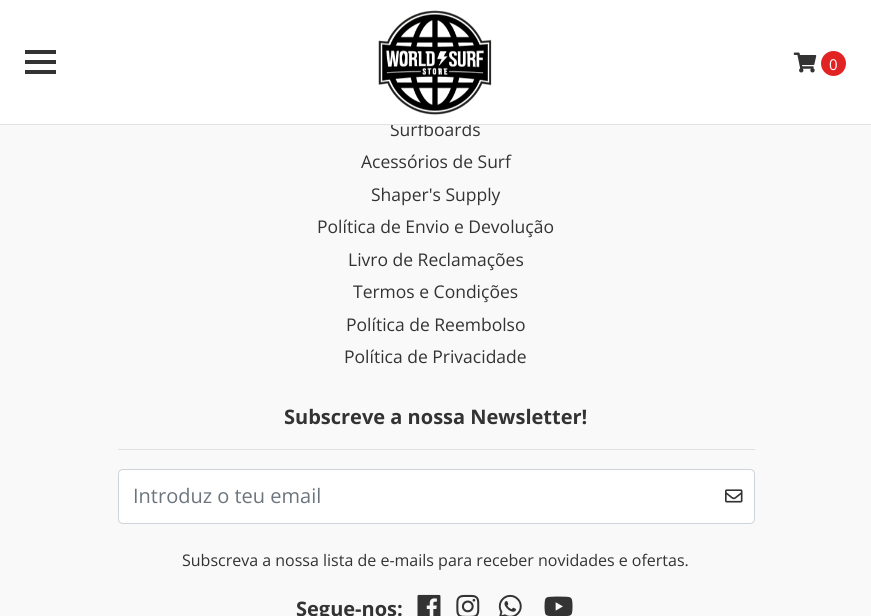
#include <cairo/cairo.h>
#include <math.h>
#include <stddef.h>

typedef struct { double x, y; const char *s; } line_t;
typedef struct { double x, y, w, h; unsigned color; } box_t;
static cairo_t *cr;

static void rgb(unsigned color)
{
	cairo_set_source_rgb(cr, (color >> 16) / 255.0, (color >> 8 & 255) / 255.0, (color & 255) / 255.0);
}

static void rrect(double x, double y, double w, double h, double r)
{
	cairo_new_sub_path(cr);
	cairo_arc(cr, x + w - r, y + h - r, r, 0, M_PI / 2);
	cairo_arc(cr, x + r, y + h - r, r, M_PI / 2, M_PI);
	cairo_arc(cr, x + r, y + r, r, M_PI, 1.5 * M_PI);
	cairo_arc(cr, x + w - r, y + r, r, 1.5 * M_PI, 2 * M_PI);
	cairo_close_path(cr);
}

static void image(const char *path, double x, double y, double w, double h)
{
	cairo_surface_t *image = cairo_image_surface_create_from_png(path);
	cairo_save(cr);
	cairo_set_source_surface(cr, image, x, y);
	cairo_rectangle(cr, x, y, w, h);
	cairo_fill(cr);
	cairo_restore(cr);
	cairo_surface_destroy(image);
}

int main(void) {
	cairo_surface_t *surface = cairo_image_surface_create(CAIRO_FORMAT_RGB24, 871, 616);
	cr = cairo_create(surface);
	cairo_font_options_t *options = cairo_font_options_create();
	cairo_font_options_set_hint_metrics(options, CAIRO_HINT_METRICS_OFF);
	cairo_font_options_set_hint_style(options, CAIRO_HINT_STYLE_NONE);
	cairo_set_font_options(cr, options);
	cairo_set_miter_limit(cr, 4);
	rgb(0xf9f9f9);
	cairo_paint(cr);
	rgb(0xe0e0e0);
	cairo_rectangle(cr, 118, 449, 637, 1);
	cairo_fill(cr);
	rgb(0xffffff);
	rrect(118.5, 469.5, 636, 54, 4.5);
	cairo_fill_preserve(cr);
	rgb(0xced4da);
	cairo_set_line_width(cr, 1);
	cairo_stroke(cr);
	image("img/3.png", 725, 489, 18, 14);
	image("img/4.png", 417, 594, 24, 22);
	image("img/5.png", 456, 594, 24, 22);
	image("img/6.png", 498, 594, 24, 22);
	image("img/7.png", 544, 596, 29, 20);
	cairo_select_font_face(cr, "Open Sans", CAIRO_FONT_SLANT_NORMAL, CAIRO_FONT_WEIGHT_NORMAL);
	cairo_set_font_size(cr, 17.5);
	rgb(0x333333);
	cairo_move_to(cr, 390, 136);
	cairo_show_text(cr, "Surfboards");
	{
		static const box_t items[] = {
			{0, 0, 871, 124, 0xffffff},
			{25, 70, 31, 4, 0x333333},
			{25, 60, 31, 4, 0x333333},
			{25, 50, 31, 4, 0x333333},
		};
		for (size_t i = 0; i < sizeof items / sizeof *items; i++) {
			rgb(items[i].color);
			cairo_rectangle(cr, items[i].x, items[i].y, items[i].w, items[i].h);
			cairo_fill(cr);
		}
	}
	rgb(0xe22323);
	cairo_new_path(cr);
	cairo_arc(cr, 833.5, 63.5, 12.5, 0, 2 * M_PI);
	cairo_fill(cr);
	cairo_set_font_size(cr, 15);
	rgb(0xffffff);
	cairo_move_to(cr, 829, 70);
	cairo_show_text(cr, "0");
	image("img/2.png", 793, 52, 24, 21);
	image("img/1.png", 378, 10, 114, 105);
	rgb(0xe1e1e1);
	cairo_rectangle(cr, 0, 124, 871, 1);
	cairo_fill(cr);
	cairo_set_font_size(cr, 17.5);
	rgb(0x333333);
	{
		static const line_t items[] = {
			{361, 168, "Acessórios de Surf"},
			{371, 201, "Shaper's Supply"},
			{317, 233, "Política de Envio e Devolução"},
			{348, 266, "Livro de Reclamações"},
			{353, 298, "Termos e Condições"},
			{346, 331, "Política de Reembolso"},
			{344, 363, "Política de Privacidade"},
		};
		for (size_t i = 0; i < sizeof items / sizeof *items; i++) {
			cairo_move_to(cr, items[i].x, items[i].y);
			cairo_show_text(cr, items[i].s);
		}
	}
	cairo_select_font_face(cr, "Open Sans", CAIRO_FONT_SLANT_NORMAL, CAIRO_FONT_WEIGHT_BOLD);
	cairo_set_font_size(cr, 20);
	cairo_move_to(cr, 284, 424);
	cairo_show_text(cr, "Subscreve a nossa Newsletter!");
	cairo_select_font_face(cr, "Open Sans", CAIRO_FONT_SLANT_NORMAL, CAIRO_FONT_WEIGHT_NORMAL);
	rgb(0x6c757d);
	cairo_move_to(cr, 133, 503);
	cairo_show_text(cr, "Introduz o teu email");
	cairo_set_font_size(cr, 16);
	rgb(0x333333);
	cairo_move_to(cr, 182, 566);
	cairo_show_text(cr, "Subscreva a nossa lista de e-mails para receber novidades e ofertas.");
	cairo_select_font_face(cr, "Open Sans", CAIRO_FONT_SLANT_NORMAL, CAIRO_FONT_WEIGHT_BOLD);
	cairo_set_font_size(cr, 20);
	cairo_move_to(cr, 296, 616);
	cairo_show_text(cr, "Segue-nos:");
	cairo_surface_write_to_png(surface, "page.png");
	cairo_font_options_destroy(options);
	cairo_destroy(cr);
	cairo_surface_destroy(surface);
	return 0;
}
